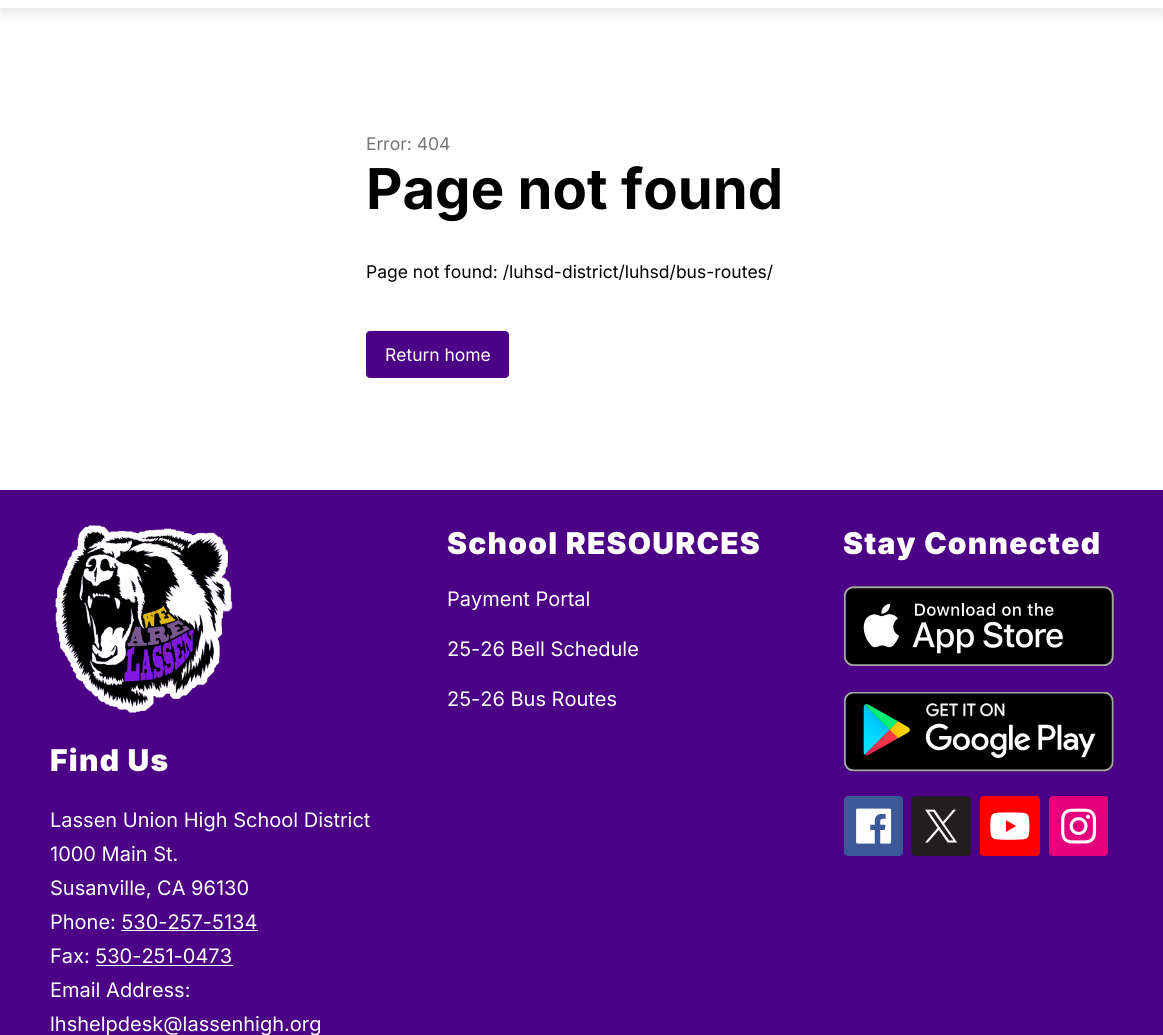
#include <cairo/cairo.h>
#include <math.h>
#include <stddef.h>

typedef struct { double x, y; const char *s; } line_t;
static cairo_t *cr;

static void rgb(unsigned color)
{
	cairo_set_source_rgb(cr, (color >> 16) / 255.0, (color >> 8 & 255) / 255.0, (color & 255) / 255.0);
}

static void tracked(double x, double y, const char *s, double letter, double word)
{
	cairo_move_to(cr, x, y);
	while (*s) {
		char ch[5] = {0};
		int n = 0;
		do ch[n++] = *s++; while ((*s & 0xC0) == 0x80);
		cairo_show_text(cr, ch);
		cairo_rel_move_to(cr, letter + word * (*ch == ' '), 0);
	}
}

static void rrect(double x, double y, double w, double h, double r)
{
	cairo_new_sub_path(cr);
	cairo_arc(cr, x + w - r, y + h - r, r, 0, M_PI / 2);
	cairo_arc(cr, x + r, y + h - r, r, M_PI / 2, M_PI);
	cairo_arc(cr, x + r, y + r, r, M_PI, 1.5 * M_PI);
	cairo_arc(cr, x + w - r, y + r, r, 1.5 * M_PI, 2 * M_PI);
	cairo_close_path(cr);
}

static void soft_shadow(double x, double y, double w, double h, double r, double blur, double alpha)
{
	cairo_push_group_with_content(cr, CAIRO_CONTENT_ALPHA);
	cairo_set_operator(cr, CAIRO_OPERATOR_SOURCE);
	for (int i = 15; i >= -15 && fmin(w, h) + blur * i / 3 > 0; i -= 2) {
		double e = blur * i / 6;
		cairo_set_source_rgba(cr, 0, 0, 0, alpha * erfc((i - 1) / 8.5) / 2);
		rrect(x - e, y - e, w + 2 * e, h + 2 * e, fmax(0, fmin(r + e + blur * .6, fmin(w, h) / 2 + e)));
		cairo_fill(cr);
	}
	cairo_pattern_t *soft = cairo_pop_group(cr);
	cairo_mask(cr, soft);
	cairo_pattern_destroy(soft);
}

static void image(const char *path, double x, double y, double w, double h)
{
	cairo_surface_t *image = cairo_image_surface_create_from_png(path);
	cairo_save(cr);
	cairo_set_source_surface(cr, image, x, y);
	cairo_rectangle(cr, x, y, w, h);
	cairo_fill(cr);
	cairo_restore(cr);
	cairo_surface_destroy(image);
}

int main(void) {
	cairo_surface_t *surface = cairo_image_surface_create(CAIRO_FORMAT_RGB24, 1163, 1035);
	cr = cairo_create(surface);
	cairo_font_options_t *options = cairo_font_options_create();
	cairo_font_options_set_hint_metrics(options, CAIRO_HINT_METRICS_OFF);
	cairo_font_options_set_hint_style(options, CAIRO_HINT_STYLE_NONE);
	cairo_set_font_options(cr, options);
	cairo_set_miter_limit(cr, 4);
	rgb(0xffffff);
	cairo_paint(cr);
	rgb(0x000000);
	soft_shadow(0, -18, 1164, 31, 0, 6, 0.1);
	rgb(0xffffff);
	cairo_rectangle(cr, 0, 0, 1163, 8);
	cairo_fill(cr);
	rgb(0x4b0086);
	rrect(366, 331, 143, 47, 4);
	cairo_fill(cr);
	cairo_rectangle(cr, 0, 490, 1163, 545);
	cairo_fill(cr);
	image("img/1.png", 844, 586, 270, 80);
	image("img/2.png", 844, 692, 270, 80);
	image("img/3.png", 844, 796, 59, 60);
	image("img/4.png", 911, 796, 60, 60);
	image("img/5.png", 980, 796, 60, 60);
	image("img/6.png", 1049, 796, 59, 60);
	image("img/7.png", 55, 525, 178, 188);
	rgb(0xffffff);
	cairo_rectangle(cr, 121, 930, 137, 1);
	cairo_fill(cr);
	cairo_rectangle(cr, 96, 965, 137, 1);
	cairo_fill(cr);
	cairo_select_font_face(cr, "Inter", CAIRO_FONT_SLANT_NORMAL, CAIRO_FONT_WEIGHT_NORMAL);
	cairo_set_font_size(cr, 17.5);
	rgb(0x747474);
	cairo_move_to(cr, 366, 150);
	cairo_show_text(cr, "Error: 404");
	cairo_select_font_face(cr, "Inter", CAIRO_FONT_SLANT_NORMAL, CAIRO_FONT_WEIGHT_BOLD);
	cairo_set_font_size(cr, 56.25);
	rgb(0x000000);
	cairo_move_to(cr, 366, 209);
	cairo_show_text(cr, "Page not found");
	cairo_select_font_face(cr, "Inter", CAIRO_FONT_SLANT_NORMAL, CAIRO_FONT_WEIGHT_NORMAL);
	cairo_set_font_size(cr, 17.5);
	cairo_move_to(cr, 366, 278);
	cairo_show_text(cr, "Page not found: /luhsd-district/luhsd/bus-routes/");
	rgb(0xffffff);
	cairo_move_to(cr, 385, 361);
	cairo_show_text(cr, "Return home");
	cairo_select_font_face(cr, "Inter Black", CAIRO_FONT_SLANT_NORMAL, CAIRO_FONT_WEIGHT_NORMAL);
	cairo_set_font_size(cr, 30);
	tracked(447, 554, "School RESOURCES", 1.25, 0);
	cairo_select_font_face(cr, "Inter", CAIRO_FONT_SLANT_NORMAL, CAIRO_FONT_WEIGHT_NORMAL);
	cairo_set_font_size(cr, 20);
	{
		static const line_t items[] = {
			{447, 606, "Payment Portal"},
			{447, 656, "25-26 Bell Schedule"},
			{447, 706, "25-26 Bus Routes"},
		};
		for (size_t i = 0; i < sizeof items / sizeof *items; i++) {
			cairo_move_to(cr, items[i].x, items[i].y);
			cairo_show_text(cr, items[i].s);
		}
	}
	cairo_select_font_face(cr, "Inter Black", CAIRO_FONT_SLANT_NORMAL, CAIRO_FONT_WEIGHT_NORMAL);
	cairo_set_font_size(cr, 30);
	tracked(843, 554, "Stay Connected", 1.25, 0);
	tracked(50, 771, "Find Us", 1.25, 0);
	cairo_select_font_face(cr, "Inter", CAIRO_FONT_SLANT_NORMAL, CAIRO_FONT_WEIGHT_NORMAL);
	cairo_set_font_size(cr, 20);
	{
		static const line_t items[] = {
			{50, 827, "Lassen Union High School District"},
			{50, 861, "1000 Main St."},
			{50, 895, "Susanville, CA 96130"},
			{50, 929, "Phone: 530-257-5134"},
			{50, 963, "Fax: 530-251-0473"},
			{50, 997, "Email Address:"},
			{50, 1031, "lhshelpdesk@lassenhigh.org"},
		};
		for (size_t i = 0; i < sizeof items / sizeof *items; i++) {
			cairo_move_to(cr, items[i].x, items[i].y);
			cairo_show_text(cr, items[i].s);
		}
	}
	cairo_surface_write_to_png(surface, "page.png");
	cairo_font_options_destroy(options);
	cairo_destroy(cr);
	cairo_surface_destroy(surface);
	return 0;
}
